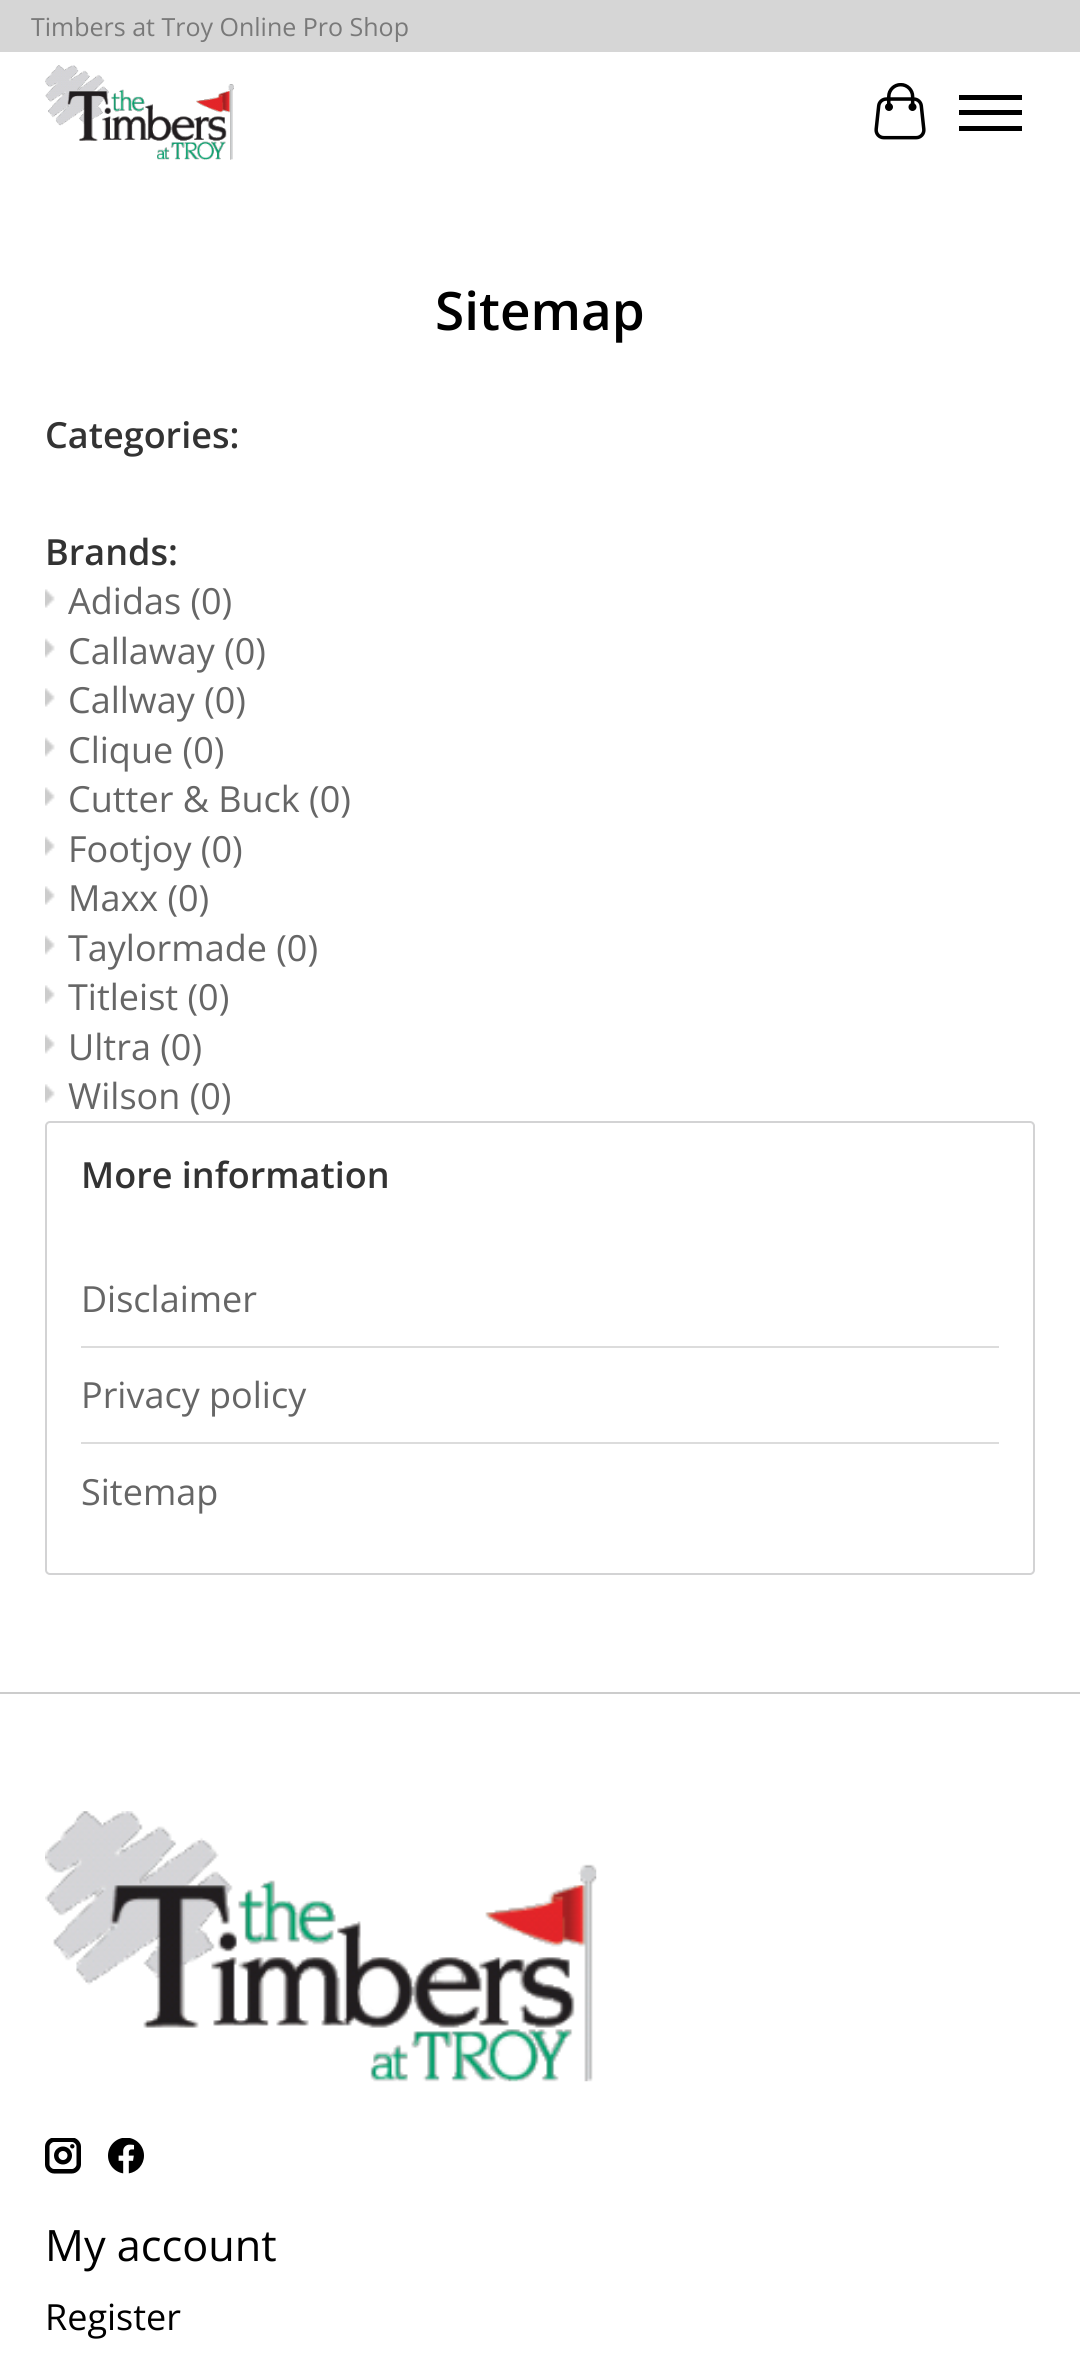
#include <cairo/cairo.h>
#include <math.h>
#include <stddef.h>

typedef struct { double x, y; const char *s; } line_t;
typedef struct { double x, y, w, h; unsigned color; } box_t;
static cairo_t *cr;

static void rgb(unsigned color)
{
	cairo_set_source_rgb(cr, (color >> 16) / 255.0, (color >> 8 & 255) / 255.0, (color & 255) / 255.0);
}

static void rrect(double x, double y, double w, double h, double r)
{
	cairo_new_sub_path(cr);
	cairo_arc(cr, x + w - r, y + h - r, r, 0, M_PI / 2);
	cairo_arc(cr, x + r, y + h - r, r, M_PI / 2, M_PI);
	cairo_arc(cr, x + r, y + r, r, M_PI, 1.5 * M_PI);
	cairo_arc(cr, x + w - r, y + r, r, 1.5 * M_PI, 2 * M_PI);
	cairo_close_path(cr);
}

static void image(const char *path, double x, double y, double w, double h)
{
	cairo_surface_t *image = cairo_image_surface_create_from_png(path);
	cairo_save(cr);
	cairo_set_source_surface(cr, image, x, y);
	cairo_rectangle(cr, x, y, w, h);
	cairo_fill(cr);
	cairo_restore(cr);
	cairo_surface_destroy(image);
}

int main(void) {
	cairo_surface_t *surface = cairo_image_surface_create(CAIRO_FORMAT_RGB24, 1080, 2379);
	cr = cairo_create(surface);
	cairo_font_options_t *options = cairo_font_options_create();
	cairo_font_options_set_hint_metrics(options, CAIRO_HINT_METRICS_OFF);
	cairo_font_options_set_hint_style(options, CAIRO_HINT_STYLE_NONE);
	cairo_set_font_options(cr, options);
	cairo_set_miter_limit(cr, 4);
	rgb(0xffffff);
	cairo_paint(cr);
	rgb(0xd6d6d6);
	cairo_rectangle(cr, 0, 0, 1080, 52);
	cairo_fill(cr);
	image("img/1.png", 45, 65, 189, 95);
	image("img/2.png", 874, 83, 52, 57);
	{
		static const box_t items[] = {
			{959, 110, 63, 5, 0x000000},
			{959, 95, 63, 5, 0x000000},
			{959, 126, 63, 5, 0x000000},
		};
		for (size_t i = 0; i < sizeof items / sizeof *items; i++) {
			rgb(items[i].color);
			cairo_rectangle(cr, items[i].x, items[i].y, items[i].w, items[i].h);
			cairo_fill(cr);
		}
	}
	image("img/3.png", 45, 589, 10, 19);
	image("img/4.png", 45, 638, 10, 20);
	image("img/3.png", 45, 688, 10, 19);
	image("img/4.png", 45, 737, 10, 20);
	image("img/5.png", 45, 787, 10, 19);
	image("img/6.png", 45, 836, 10, 20);
	image("img/3.png", 45, 886, 10, 19);
	image("img/4.png", 45, 935, 10, 20);
	image("img/3.png", 45, 985, 10, 19);
	image("img/4.png", 45, 1034, 10, 20);
	image("img/3.png", 45, 1084, 10, 19);
	rrect(46, 1122, 988, 452, 4);
	rgb(0xd3d3d4);
	cairo_stroke(cr);
	{
		static const box_t items[] = {
			{81, 1346, 918, 2, 0xdcdcdc},
			{81, 1442, 918, 2, 0xdcdcdc},
			{0, 1692, 1080, 2, 0xcccccc},
		};
		for (size_t i = 0; i < sizeof items / sizeof *items; i++) {
			rgb(items[i].color);
			cairo_rectangle(cr, items[i].x, items[i].y, items[i].w, items[i].h);
			cairo_fill(cr);
		}
	}
	image("img/7.png", 45, 1811, 552, 271);
	image("img/8.png", 45, 2138, 36, 36);
	image("img/9.png", 108, 2138, 36, 36);
	cairo_select_font_face(cr, "Open Sans", CAIRO_FONT_SLANT_NORMAL, CAIRO_FONT_WEIGHT_NORMAL);
	cairo_set_font_size(cr, 25);
	rgb(0x797979);
	cairo_move_to(cr, 31, 36);
	cairo_show_text(cr, "Timbers at Troy Online Pro Shop");
	cairo_select_font_face(cr, "Open Sans SemiBold", CAIRO_FONT_SLANT_NORMAL, CAIRO_FONT_WEIGHT_NORMAL);
	cairo_set_font_size(cr, 53);
	rgb(0x000000);
	cairo_move_to(cr, 435, 330);
	cairo_show_text(cr, "Sitemap");
	cairo_set_font_size(cr, 36);
	rgb(0x333333);
	cairo_move_to(cr, 45, 448);
	cairo_show_text(cr, "Categories:");
	cairo_move_to(cr, 45, 565);
	cairo_show_text(cr, "Brands:");
	cairo_select_font_face(cr, "Open Sans", CAIRO_FONT_SLANT_NORMAL, CAIRO_FONT_WEIGHT_NORMAL);
	rgb(0x666666);
	{
		static const line_t items[] = {
			{68, 614, "Adidas (0)"},
			{68, 664, "Callaway (0)"},
			{68, 713, "Callway (0)"},
			{68, 763, "Clique (0)"},
			{68, 812, "Cutter & Buck (0)"},
			{68, 862, "Footjoy (0)"},
			{68, 911, "Maxx (0)"},
			{68, 961, "Taylormade (0)"},
			{68, 1010, "Titleist (0)"},
			{68, 1060, "Ultra (0)"},
			{68, 1109, "Wilson (0)"},
		};
		for (size_t i = 0; i < sizeof items / sizeof *items; i++) {
			cairo_move_to(cr, items[i].x, items[i].y);
			cairo_show_text(cr, items[i].s);
		}
	}
	cairo_select_font_face(cr, "Open Sans SemiBold", CAIRO_FONT_SLANT_NORMAL, CAIRO_FONT_WEIGHT_NORMAL);
	rgb(0x333333);
	cairo_move_to(cr, 81, 1188);
	cairo_show_text(cr, "More information");
	cairo_select_font_face(cr, "Open Sans", CAIRO_FONT_SLANT_NORMAL, CAIRO_FONT_WEIGHT_NORMAL);
	rgb(0x666666);
	{
		static const line_t items[] = {
			{81, 1312, "Disclaimer"},
			{81, 1408, "Privacy policy"},
			{81, 1505, "Sitemap"},
		};
		for (size_t i = 0; i < sizeof items / sizeof *items; i++) {
			cairo_move_to(cr, items[i].x, items[i].y);
			cairo_show_text(cr, items[i].s);
		}
	}
	cairo_set_font_size(cr, 43.25);
	rgb(0x000000);
	cairo_move_to(cr, 45, 2261);
	cairo_show_text(cr, "My account");
	cairo_set_font_size(cr, 36);
	cairo_move_to(cr, 45, 2330);
	cairo_show_text(cr, "Register");
	cairo_surface_write_to_png(surface, "page.png");
	cairo_font_options_destroy(options);
	cairo_destroy(cr);
	cairo_surface_destroy(surface);
	return 0;
}
